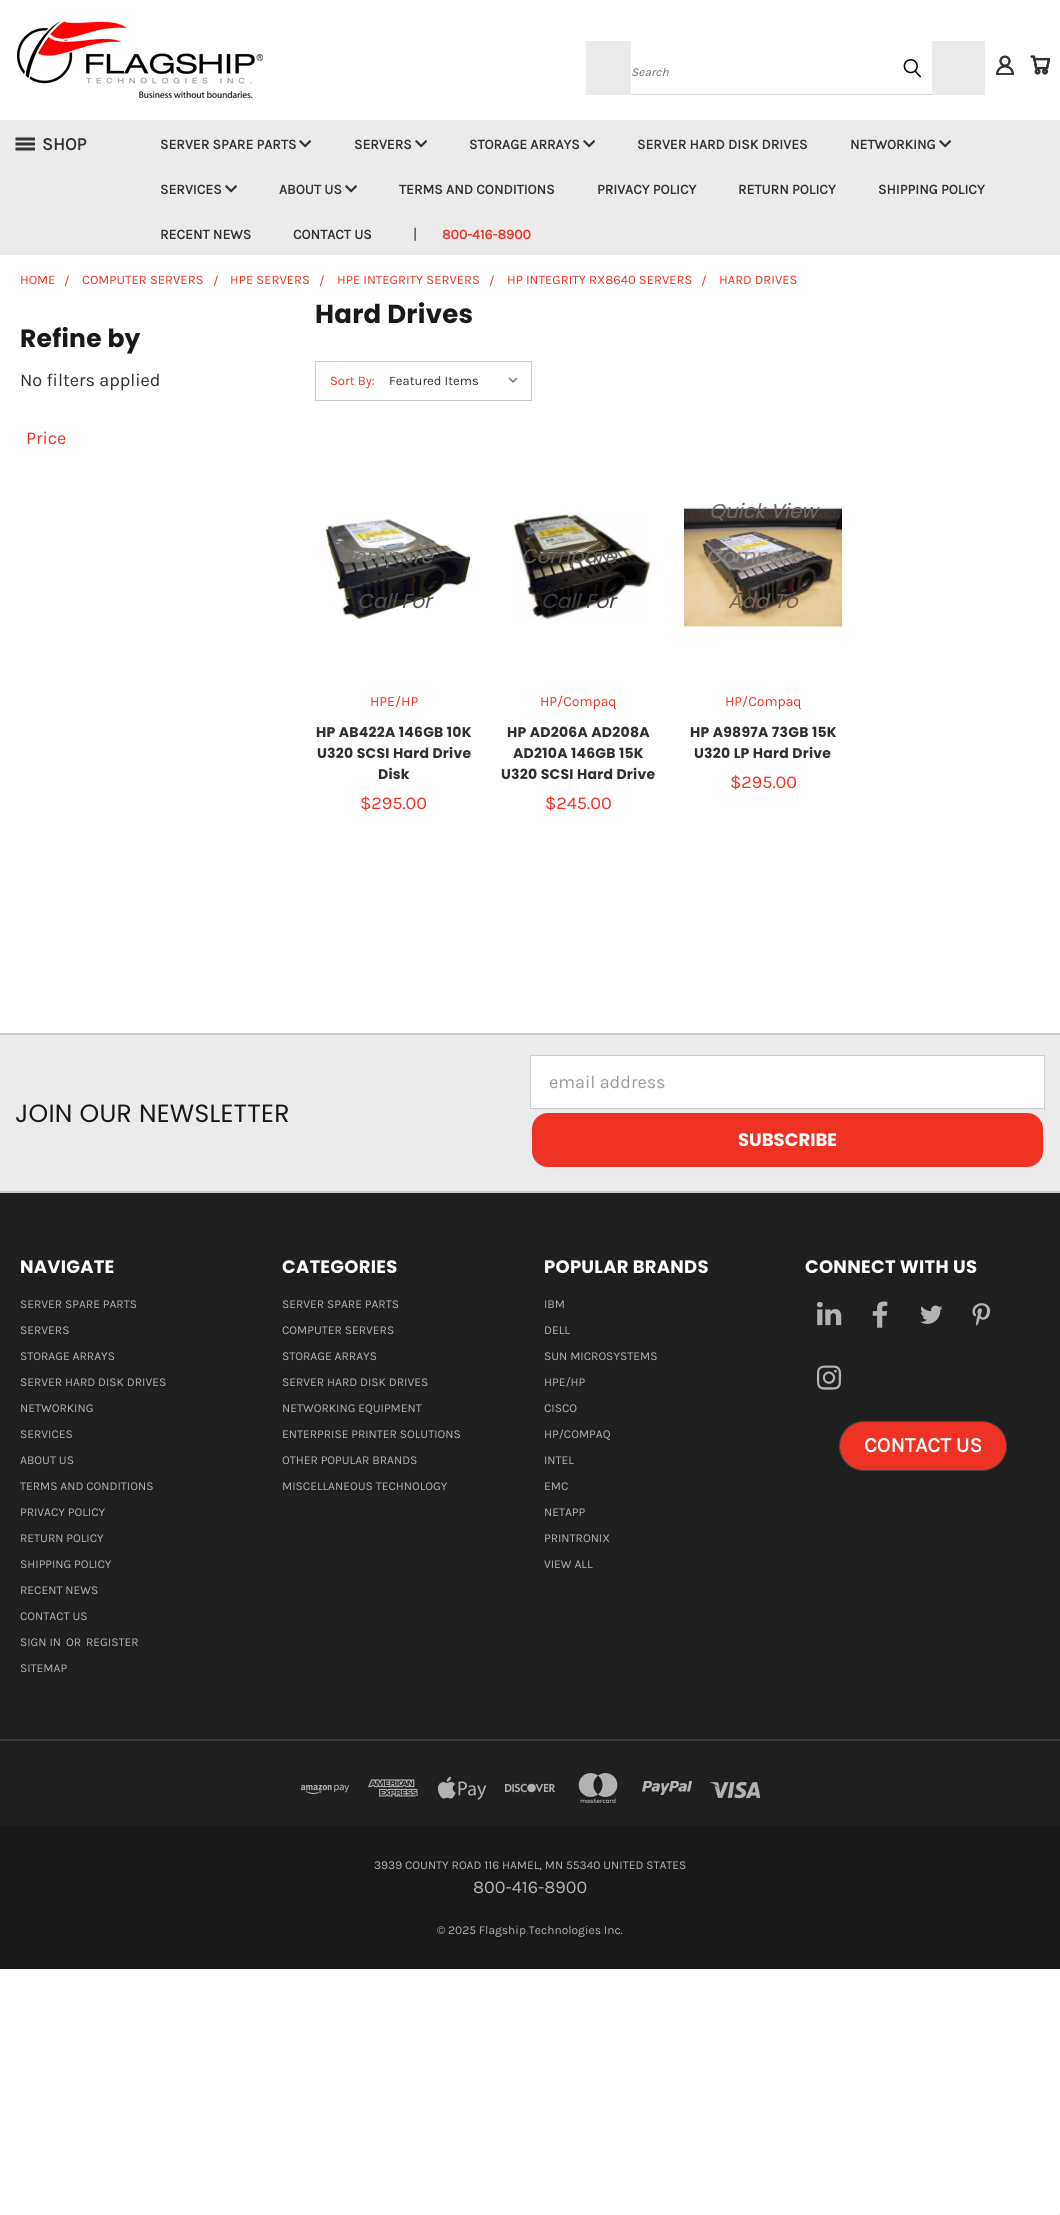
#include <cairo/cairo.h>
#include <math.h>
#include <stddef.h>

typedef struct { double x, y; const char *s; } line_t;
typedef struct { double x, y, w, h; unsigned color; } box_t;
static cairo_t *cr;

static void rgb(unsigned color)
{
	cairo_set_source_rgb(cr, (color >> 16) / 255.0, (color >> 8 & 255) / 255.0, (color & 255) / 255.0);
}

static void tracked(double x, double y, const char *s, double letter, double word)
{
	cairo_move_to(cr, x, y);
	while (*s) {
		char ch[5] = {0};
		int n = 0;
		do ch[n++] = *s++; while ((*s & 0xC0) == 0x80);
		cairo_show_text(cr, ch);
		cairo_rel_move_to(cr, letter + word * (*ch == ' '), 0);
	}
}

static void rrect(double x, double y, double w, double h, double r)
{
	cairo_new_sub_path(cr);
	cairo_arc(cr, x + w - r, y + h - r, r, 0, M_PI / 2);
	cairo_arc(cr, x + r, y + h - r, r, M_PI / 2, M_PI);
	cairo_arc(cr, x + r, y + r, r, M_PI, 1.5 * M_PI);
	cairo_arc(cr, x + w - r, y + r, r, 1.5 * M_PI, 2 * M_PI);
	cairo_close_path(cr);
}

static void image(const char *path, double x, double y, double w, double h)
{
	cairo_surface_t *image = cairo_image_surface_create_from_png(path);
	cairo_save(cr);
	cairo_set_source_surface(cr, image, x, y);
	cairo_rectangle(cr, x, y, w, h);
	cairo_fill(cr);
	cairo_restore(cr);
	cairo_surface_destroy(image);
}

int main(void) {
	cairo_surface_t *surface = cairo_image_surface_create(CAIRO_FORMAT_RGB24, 1060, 2215);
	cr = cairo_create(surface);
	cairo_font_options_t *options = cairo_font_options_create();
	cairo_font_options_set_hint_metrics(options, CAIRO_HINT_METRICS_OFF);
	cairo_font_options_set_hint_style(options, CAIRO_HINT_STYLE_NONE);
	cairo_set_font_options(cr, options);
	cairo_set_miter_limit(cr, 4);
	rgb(0xffffff);
	cairo_paint(cr);
	image("img/1.png", 17, 21, 246, 77);
	{
		static const box_t items[] = {
			{586, 41, 399, 54, 0xebebeb},
			{631, 41, 301, 53, 0xffffff},
			{631, 94, 301, 1, 0xd7d7d7},
		};
		for (size_t i = 0; i < sizeof items / sizeof *items; i++) {
			rgb(items[i].color);
			cairo_rectangle(cr, items[i].x, items[i].y, items[i].w, items[i].h);
			cairo_fill(cr);
		}
	}
	image("img/2.png", 903, 59, 18, 19);
	image("img/3.png", 996, 55, 18, 20);
	image("img/4.png", 1030, 55, 20, 20);
	rgb(0xebebeb);
	cairo_rectangle(cr, 0, 120, 1060, 135);
	cairo_fill(cr);
	image("img/5.png", 15, 137, 20, 14);
	image("img/6.png", 299, 140, 12, 8);
	image("img/6.png", 415, 140, 12, 8);
	image("img/6.png", 583, 140, 12, 8);
	image("img/6.png", 939, 140, 12, 8);
	image("img/6.png", 225, 185, 12, 8);
	image("img/6.png", 345, 185, 12, 8);
	cairo_rectangle(cr, 315.5, 361.5, 216, 39);
	rgb(0xcccccc);
	cairo_set_line_width(cr, 1);
	cairo_stroke(cr);
	image("img/7.png", 508, 377, 10, 6);
	image("img/8.png", 324, 518, 148, 102);
	image("img/9.png", 513, 513, 138, 107);
	image("img/10.png", 684, 507, 158, 121);
	rgb(0xebebeb);
	cairo_rectangle(cr, 0, 1035, 1060, 156);
	cairo_fill(cr);
	rgb(0xcdcccc);
	cairo_rectangle(cr, 0, 1033, 1060, 2);
	cairo_fill(cr);
	rgb(0xffffff);
	cairo_rectangle(cr, 530.5, 1055.5, 514, 53);
	cairo_fill_preserve(cr);
	rgb(0xcccccc);
	cairo_stroke(cr);
	rgb(0xee3324);
	rrect(532, 1113, 511, 54, 16);
	cairo_fill(cr);
	rgb(0x1f1f1f);
	cairo_rectangle(cr, 0, 1193, 1060, 633);
	cairo_fill(cr);
	rgb(0xcdcccc);
	cairo_rectangle(cr, 0, 1191, 1060, 2);
	cairo_fill(cr);
	image("img/11.png", 816, 1301, 26, 25);
	image("img/12.png", 872, 1301, 16, 27);
	image("img/13.png", 920, 1305, 23, 19);
	image("img/14.png", 972, 1303, 19, 23);
	image("img/15.png", 816, 1365, 26, 25);
	rgb(0xee3324);
	rrect(839.5, 1421.5, 167, 49, 24.5);
	cairo_fill_preserve(cr);
	rgb(0x444444);
	cairo_stroke(cr);
	rgb(0x363636);
	cairo_rectangle(cr, 0, 1739, 1060, 2);
	cairo_fill(cr);
	image("img/16.png", 300, 1784, 50, 11);
	image("img/17.png", 368, 1779, 50, 18);
	image("img/18.png", 437, 1776, 50, 24);
	image("img/19.png", 505, 1783, 50, 10);
	image("img/20.png", 578, 1773, 40, 30);
	image("img/21.png", 642, 1781, 50, 14);
	image("img/22.png", 710, 1781, 50, 18);
	rgb(0x191919);
	cairo_rectangle(cr, 0, 1826, 1060, 143);
	cairo_fill(cr);
	rgb(0xf5f5f5);
	cairo_rectangle(cr, 1058, 2213, 2, 2);
	cairo_fill(cr);
	cairo_select_font_face(cr, "Karla", CAIRO_FONT_SLANT_ITALIC, CAIRO_FONT_WEIGHT_NORMAL);
	cairo_set_font_size(cr, 12);
	rgb(0x71706c);
	cairo_move_to(cr, 631, 76);
	cairo_show_text(cr, "Search");
	cairo_select_font_face(cr, "Karla", CAIRO_FONT_SLANT_NORMAL, CAIRO_FONT_WEIGHT_BOLD);
	cairo_set_font_size(cr, 18);
	rgb(0x333333);
	cairo_move_to(cr, 42, 150);
	cairo_show_text(cr, "SHOP");
	cairo_set_font_size(cr, 14);
	{
		static const line_t items[] = {
			{160, 149, "SERVER SPARE PARTS"},
			{354, 149, "SERVERS"},
			{469, 149, "STORAGE ARRAYS"},
			{637, 149, "SERVER HARD DISK DRIVES"},
			{850, 149, "NETWORKING"},
			{160, 194, "SERVICES"},
			{279, 194, "ABOUT US"},
			{399, 194, "TERMS AND CONDITIONS"},
			{597, 194, "PRIVACY POLICY"},
			{738, 194, "RETURN POLICY"},
			{878, 194, "SHIPPING POLICY"},
			{160, 239, "RECENT NEWS"},
			{293, 239, "CONTACT US"},
		};
		for (size_t i = 0; i < sizeof items / sizeof *items; i++) {
			cairo_move_to(cr, items[i].x, items[i].y);
			cairo_show_text(cr, items[i].s);
		}
	}
	cairo_select_font_face(cr, "Karla", CAIRO_FONT_SLANT_NORMAL, CAIRO_FONT_WEIGHT_NORMAL);
	cairo_set_font_size(cr, 15);
	rgb(0x2f2f2b);
	cairo_move_to(cr, 413, 239);
	cairo_show_text(cr, "|");
	cairo_select_font_face(cr, "Karla", CAIRO_FONT_SLANT_NORMAL, CAIRO_FONT_WEIGHT_BOLD);
	cairo_set_font_size(cr, 14);
	rgb(0xee3324);
	cairo_move_to(cr, 442, 239);
	cairo_show_text(cr, "800-416-8900");
	cairo_select_font_face(cr, "Karla", CAIRO_FONT_SLANT_NORMAL, CAIRO_FONT_WEIGHT_NORMAL);
	cairo_set_font_size(cr, 13);
	{
		static const line_t items[] = {
			{20, 284, "HOME"},
			{64, 285, "/"},
			{82, 284, "COMPUTER SERVERS"},
			{213, 285, "/"},
			{230, 284, "HPE SERVERS"},
			{319, 285, "/"},
			{337, 284, "HPE INTEGRITY SERVERS"},
			{489, 285, "/"},
			{507, 284, "HP INTEGRITY RX8640 SERVERS"},
			{701, 285, "/"},
			{719, 284, "HARD DRIVES"},
		};
		for (size_t i = 0; i < sizeof items / sizeof *items; i++) {
			cairo_move_to(cr, items[i].x, items[i].y);
			cairo_show_text(cr, items[i].s);
		}
	}
	cairo_select_font_face(cr, "Poppins", CAIRO_FONT_SLANT_NORMAL, CAIRO_FONT_WEIGHT_BOLD);
	cairo_set_font_size(cr, 25);
	rgb(0x191919);
	tracked(20, 347, "Refine by", 0.25, 0);
	cairo_select_font_face(cr, "Karla", CAIRO_FONT_SLANT_NORMAL, CAIRO_FONT_WEIGHT_NORMAL);
	cairo_set_font_size(cr, 18);
	rgb(0x2f2f2b);
	cairo_move_to(cr, 20, 386);
	cairo_show_text(cr, "No filters applied");
	rgb(0xee3324);
	cairo_move_to(cr, 26, 444);
	cairo_show_text(cr, "Price");
	cairo_select_font_face(cr, "Poppins", CAIRO_FONT_SLANT_NORMAL, CAIRO_FONT_WEIGHT_BOLD);
	cairo_set_font_size(cr, 26);
	rgb(0x191919);
	tracked(315, 323, "Hard Drives", 0.25, 0);
	cairo_select_font_face(cr, "Karla", CAIRO_FONT_SLANT_NORMAL, CAIRO_FONT_WEIGHT_NORMAL);
	cairo_set_font_size(cr, 13);
	rgb(0xee3324);
	cairo_move_to(cr, 330, 385);
	cairo_show_text(cr, "Sort By:");
	rgb(0x2f2f2b);
	cairo_move_to(cr, 389, 385);
	cairo_show_text(cr, "Featured Items");
	cairo_select_font_face(cr, "Poppins", CAIRO_FONT_SLANT_ITALIC, CAIRO_FONT_WEIGHT_NORMAL);
	cairo_set_font_size(cr, 20);
	rgb(0x71706c);
	cairo_move_to(cr, 337, 563);
	cairo_show_text(cr, "Compare");
	rgb(0x525051);
	cairo_move_to(cr, 357, 608);
	cairo_show_text(cr, "Call For");
	cairo_select_font_face(cr, "Karla", CAIRO_FONT_SLANT_NORMAL, CAIRO_FONT_WEIGHT_NORMAL);
	cairo_set_font_size(cr, 14);
	rgb(0xee3324);
	cairo_move_to(cr, 370, 706);
	cairo_show_text(cr, "HPE/HP");
	cairo_select_font_face(cr, "Poppins", CAIRO_FONT_SLANT_NORMAL, CAIRO_FONT_WEIGHT_BOLD);
	rgb(0x2f2f2b);
	{
		static const line_t items[] = {
			{316, 737, "HP AB422A 146GB 10K"},
			{317, 758, "U320 SCSI Hard Drive"},
			{378, 779, "Disk"},
		};
		for (size_t i = 0; i < sizeof items / sizeof *items; i++) {
			tracked(items[i].x, items[i].y, items[i].s, 0.25, 0);
		}
	}
	cairo_select_font_face(cr, "Karla", CAIRO_FONT_SLANT_NORMAL, CAIRO_FONT_WEIGHT_NORMAL);
	cairo_set_font_size(cr, 18);
	rgb(0xee3324);
	cairo_move_to(cr, 360, 809);
	cairo_show_text(cr, "$295.00");
	cairo_select_font_face(cr, "Poppins", CAIRO_FONT_SLANT_ITALIC, CAIRO_FONT_WEIGHT_NORMAL);
	cairo_set_font_size(cr, 20);
	rgb(0x605e57);
	cairo_move_to(cr, 521, 563);
	cairo_show_text(cr, "Compare");
	rgb(0x424142);
	cairo_move_to(cr, 541, 608);
	cairo_show_text(cr, "Call For");
	cairo_select_font_face(cr, "Karla", CAIRO_FONT_SLANT_NORMAL, CAIRO_FONT_WEIGHT_NORMAL);
	cairo_set_font_size(cr, 14);
	rgb(0xee3324);
	cairo_move_to(cr, 540, 706);
	cairo_show_text(cr, "HP/Compaq");
	cairo_select_font_face(cr, "Poppins", CAIRO_FONT_SLANT_NORMAL, CAIRO_FONT_WEIGHT_BOLD);
	rgb(0x2f2f2b);
	{
		static const line_t items[] = {
			{507, 737, "HP AD206A AD208A"},
			{513, 758, "AD210A 146GB 15K"},
			{501, 779, "U320 SCSI Hard Drive"},
		};
		for (size_t i = 0; i < sizeof items / sizeof *items; i++) {
			tracked(items[i].x, items[i].y, items[i].s, 0.25, 0);
		}
	}
	cairo_select_font_face(cr, "Karla", CAIRO_FONT_SLANT_NORMAL, CAIRO_FONT_WEIGHT_NORMAL);
	cairo_set_font_size(cr, 18);
	rgb(0xee3324);
	cairo_move_to(cr, 545, 809);
	cairo_show_text(cr, "$245.00");
	cairo_select_font_face(cr, "Poppins", CAIRO_FONT_SLANT_ITALIC, CAIRO_FONT_WEIGHT_NORMAL);
	cairo_set_font_size(cr, 20);
	rgb(0x6f6966);
	cairo_move_to(cr, 709, 518);
	cairo_show_text(cr, "Quick View");
	rgb(0x8a8482);
	cairo_move_to(cr, 706, 563);
	cairo_show_text(cr, "Compare");
	rgb(0x74654d);
	cairo_move_to(cr, 728, 608);
	cairo_show_text(cr, "Add To");
	cairo_select_font_face(cr, "Karla", CAIRO_FONT_SLANT_NORMAL, CAIRO_FONT_WEIGHT_NORMAL);
	cairo_set_font_size(cr, 14);
	rgb(0xee3324);
	cairo_move_to(cr, 725, 706);
	cairo_show_text(cr, "HP/Compaq");
	cairo_select_font_face(cr, "Poppins", CAIRO_FONT_SLANT_NORMAL, CAIRO_FONT_WEIGHT_BOLD);
	rgb(0x2f2f2b);
	tracked(690, 737, "HP A9897A 73GB 15K", 0.25, 0);
	tracked(694, 758, "U320 LP Hard Drive", 0.25, 0);
	cairo_select_font_face(cr, "Karla", CAIRO_FONT_SLANT_NORMAL, CAIRO_FONT_WEIGHT_NORMAL);
	cairo_set_font_size(cr, 18);
	rgb(0xee3324);
	cairo_move_to(cr, 730, 788);
	cairo_show_text(cr, "$295.00");
	cairo_select_font_face(cr, "Poppins", CAIRO_FONT_SLANT_NORMAL, CAIRO_FONT_WEIGHT_NORMAL);
	cairo_set_font_size(cr, 25);
	rgb(0x191919);
	tracked(15, 1122, "JOIN OUR NEWSLETTER", 0.25, 0);
	cairo_select_font_face(cr, "Karla", CAIRO_FONT_SLANT_NORMAL, CAIRO_FONT_WEIGHT_NORMAL);
	cairo_set_font_size(cr, 18);
	rgb(0x999999);
	cairo_move_to(cr, 549, 1088);
	cairo_show_text(cr, "email address");
	cairo_select_font_face(cr, "Poppins", CAIRO_FONT_SLANT_NORMAL, CAIRO_FONT_WEIGHT_BOLD);
	rgb(0xffffff);
	cairo_move_to(cr, 738, 1146);
	cairo_show_text(cr, "SUBSCRIBE");
	tracked(20, 1273, "NAVIGATE", 0.25, 0);
	cairo_select_font_face(cr, "Karla", CAIRO_FONT_SLANT_NORMAL, CAIRO_FONT_WEIGHT_NORMAL);
	cairo_set_font_size(cr, 12);
	rgb(0xb2b2b2);
	{
		static const line_t items[] = {
			{20, 1308, "SERVER SPARE PARTS"},
			{20, 1334, "SERVERS"},
			{20, 1360, "STORAGE ARRAYS"},
			{20, 1386, "SERVER HARD DISK DRIVES"},
			{20, 1412, "NETWORKING"},
			{20, 1438, "SERVICES"},
			{20, 1464, "ABOUT US"},
			{20, 1490, "TERMS AND CONDITIONS"},
			{20, 1516, "PRIVACY POLICY"},
			{20, 1542, "RETURN POLICY"},
			{20, 1568, "SHIPPING POLICY"},
			{20, 1594, "RECENT NEWS"},
			{20, 1620, "CONTACT US"},
			{20, 1646, "SIGN IN"},
			{66, 1646, "OR"},
			{86, 1646, "REGISTER"},
			{20, 1672, "SITEMAP"},
		};
		for (size_t i = 0; i < sizeof items / sizeof *items; i++) {
			cairo_move_to(cr, items[i].x, items[i].y);
			cairo_show_text(cr, items[i].s);
		}
	}
	cairo_select_font_face(cr, "Poppins", CAIRO_FONT_SLANT_NORMAL, CAIRO_FONT_WEIGHT_BOLD);
	cairo_set_font_size(cr, 18);
	rgb(0xffffff);
	tracked(282, 1273, "CATEGORIES", 0.25, 0);
	cairo_select_font_face(cr, "Karla", CAIRO_FONT_SLANT_NORMAL, CAIRO_FONT_WEIGHT_NORMAL);
	cairo_set_font_size(cr, 12);
	rgb(0xb2b2b2);
	{
		static const line_t items[] = {
			{282, 1308, "SERVER SPARE PARTS"},
			{282, 1334, "COMPUTER SERVERS"},
			{282, 1360, "STORAGE ARRAYS"},
			{282, 1386, "SERVER HARD DISK DRIVES"},
			{282, 1412, "NETWORKING EQUIPMENT"},
			{282, 1438, "ENTERPRISE PRINTER SOLUTIONS"},
			{282, 1464, "OTHER POPULAR BRANDS"},
			{282, 1490, "MISCELLANEOUS TECHNOLOGY"},
		};
		for (size_t i = 0; i < sizeof items / sizeof *items; i++) {
			cairo_move_to(cr, items[i].x, items[i].y);
			cairo_show_text(cr, items[i].s);
		}
	}
	cairo_select_font_face(cr, "Poppins", CAIRO_FONT_SLANT_NORMAL, CAIRO_FONT_WEIGHT_BOLD);
	cairo_set_font_size(cr, 18);
	rgb(0xffffff);
	tracked(544, 1273, "POPULAR BRANDS", 0.25, 0);
	cairo_select_font_face(cr, "Karla", CAIRO_FONT_SLANT_NORMAL, CAIRO_FONT_WEIGHT_NORMAL);
	cairo_set_font_size(cr, 12);
	rgb(0xb2b2b2);
	{
		static const line_t items[] = {
			{544, 1308, "IBM"},
			{544, 1334, "DELL"},
			{544, 1360, "SUN MICROSYSTEMS"},
			{544, 1386, "HPE/HP"},
			{544, 1412, "CISCO"},
			{544, 1438, "HP/COMPAQ"},
			{544, 1464, "INTEL"},
			{544, 1490, "EMC"},
			{544, 1516, "NETAPP"},
			{544, 1542, "PRINTRONIX"},
			{544, 1568, "VIEW ALL"},
		};
		for (size_t i = 0; i < sizeof items / sizeof *items; i++) {
			cairo_move_to(cr, items[i].x, items[i].y);
			cairo_show_text(cr, items[i].s);
		}
	}
	cairo_select_font_face(cr, "Poppins", CAIRO_FONT_SLANT_NORMAL, CAIRO_FONT_WEIGHT_BOLD);
	cairo_set_font_size(cr, 18);
	rgb(0xffffff);
	tracked(805, 1273, "CONNECT WITH US", 0.25, 0);
	cairo_select_font_face(cr, "Karla", CAIRO_FONT_SLANT_NORMAL, CAIRO_FONT_WEIGHT_BOLD);
	cairo_set_font_size(cr, 21);
	cairo_move_to(cr, 864, 1452);
	cairo_show_text(cr, "CONTACT US");
	cairo_select_font_face(cr, "Karla", CAIRO_FONT_SLANT_NORMAL, CAIRO_FONT_WEIGHT_NORMAL);
	cairo_set_font_size(cr, 12);
	rgb(0xb2b2b2);
	cairo_move_to(cr, 374, 1869);
	cairo_show_text(cr, "3939 COUNTY ROAD 116 HAMEL, MN 55340 UNITED STATES");
	cairo_set_font_size(cr, 18);
	cairo_move_to(cr, 473, 1893);
	cairo_show_text(cr, "800-416-8900");
	cairo_set_font_size(cr, 12);
	cairo_move_to(cr, 437, 1934);
	cairo_show_text(cr, "© 2025 Flagship Technologies Inc.");
	cairo_surface_write_to_png(surface, "page.png");
	cairo_font_options_destroy(options);
	cairo_destroy(cr);
	cairo_surface_destroy(surface);
	return 0;
}
